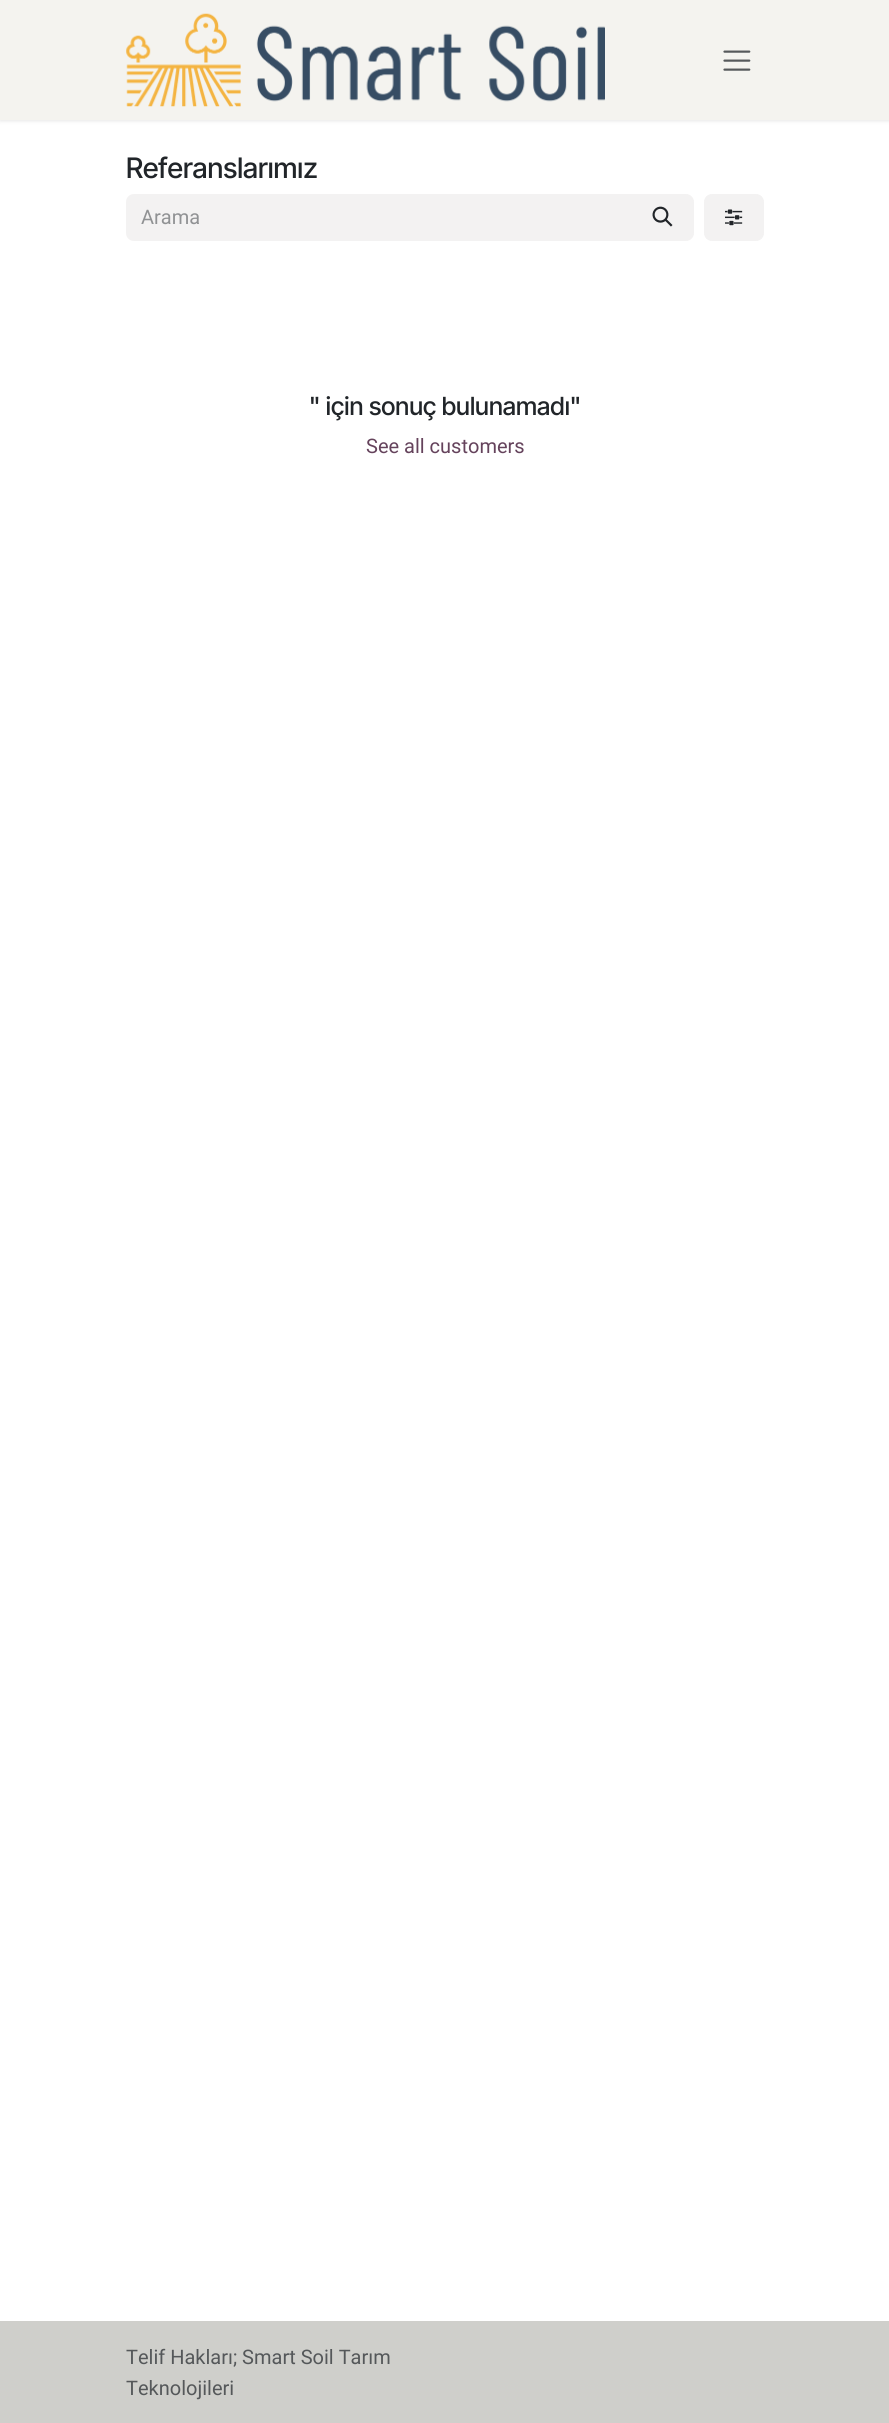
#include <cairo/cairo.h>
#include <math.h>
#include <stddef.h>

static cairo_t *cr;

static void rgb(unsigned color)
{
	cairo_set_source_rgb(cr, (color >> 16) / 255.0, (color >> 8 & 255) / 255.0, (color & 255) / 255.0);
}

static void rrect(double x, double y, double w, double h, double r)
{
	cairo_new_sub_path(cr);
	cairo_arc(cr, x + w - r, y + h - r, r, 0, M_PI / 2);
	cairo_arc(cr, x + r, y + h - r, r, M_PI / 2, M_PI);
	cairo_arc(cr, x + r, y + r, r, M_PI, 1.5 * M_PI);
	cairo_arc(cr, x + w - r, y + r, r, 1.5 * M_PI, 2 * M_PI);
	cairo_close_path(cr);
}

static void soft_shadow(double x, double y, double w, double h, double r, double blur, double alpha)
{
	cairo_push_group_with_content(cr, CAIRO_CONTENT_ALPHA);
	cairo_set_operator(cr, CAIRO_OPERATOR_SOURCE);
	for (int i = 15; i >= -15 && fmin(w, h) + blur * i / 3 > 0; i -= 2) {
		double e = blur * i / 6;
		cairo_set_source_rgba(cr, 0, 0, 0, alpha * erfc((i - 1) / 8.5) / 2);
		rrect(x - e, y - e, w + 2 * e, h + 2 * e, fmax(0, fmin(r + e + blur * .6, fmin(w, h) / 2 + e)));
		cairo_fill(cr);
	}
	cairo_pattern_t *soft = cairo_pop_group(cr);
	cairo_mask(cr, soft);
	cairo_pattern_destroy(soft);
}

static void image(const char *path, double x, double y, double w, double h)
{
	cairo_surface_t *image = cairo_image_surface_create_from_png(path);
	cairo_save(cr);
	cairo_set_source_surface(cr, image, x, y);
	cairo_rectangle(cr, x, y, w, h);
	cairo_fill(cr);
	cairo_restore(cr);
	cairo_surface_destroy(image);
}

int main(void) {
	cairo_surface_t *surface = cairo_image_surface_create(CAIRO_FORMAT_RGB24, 889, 2423);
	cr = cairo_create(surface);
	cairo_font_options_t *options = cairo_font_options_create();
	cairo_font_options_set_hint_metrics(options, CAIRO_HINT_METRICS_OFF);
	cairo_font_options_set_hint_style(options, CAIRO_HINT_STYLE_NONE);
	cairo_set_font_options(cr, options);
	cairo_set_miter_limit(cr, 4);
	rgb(0xffffff);
	cairo_paint(cr);
	rgb(0x000000);
	soft_shadow(0, 1, 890, 120, 0, 2, 0.1);
	rgb(0xf4f3ef);
	cairo_rectangle(cr, 0, 0, 889, 120);
	cairo_fill(cr);
	image("img/1.png", 126, 13, 479, 94);
	image("img/2.png", 723, 50, 28, 21);
	rgb(0xf3f2f2);
	cairo_new_path(cr);
	cairo_move_to(cr, 134, 194);
	cairo_line_to(cr, 633, 194);
	cairo_line_to(cr, 633, 241);
	cairo_line_to(cr, 134, 241);
	cairo_curve_to(cr, 129.5, 241, 126, 237.5, 126, 233);
	cairo_line_to(cr, 126, 202);
	cairo_curve_to(cr, 126, 197.5, 129.5, 194, 134, 194);
	cairo_close_path(cr);
	cairo_fill(cr);
	cairo_new_path(cr);
	cairo_move_to(cr, 631.5, 194.5);
	cairo_line_to(cr, 686, 194.5);
	cairo_curve_to(cr, 690, 194.5, 693.5, 198, 693.5, 202);
	cairo_line_to(cr, 693.5, 233);
	cairo_curve_to(cr, 693.5, 237, 690, 240.5, 686, 240.5);
	cairo_line_to(cr, 631.5, 240.5);
	cairo_close_path(cr);
	cairo_fill_preserve(cr);
	cairo_set_line_width(cr, 1);
	cairo_stroke(cr);
	image("img/3.png", 652, 206, 21, 21);
	rrect(704.5, 194.5, 59, 46, 7.5);
	cairo_fill_preserve(cr);
	cairo_stroke(cr);
	image("img/4.png", 725, 209, 18, 17);
	rgb(0xcfcfcb);
	cairo_rectangle(cr, 0, 2321, 889, 102);
	cairo_fill(cr);
	cairo_select_font_face(cr, "Inter Tight Medium", CAIRO_FONT_SLANT_NORMAL, CAIRO_FONT_WEIGHT_NORMAL);
	cairo_set_font_size(cr, 28.25);
	rgb(0x212529);
	cairo_move_to(cr, 126, 178);
	cairo_show_text(cr, "Referanslarımız");
	cairo_select_font_face(cr, "Roboto", CAIRO_FONT_SLANT_NORMAL, CAIRO_FONT_WEIGHT_NORMAL);
	cairo_set_font_size(cr, 20);
	rgb(0x909294);
	cairo_move_to(cr, 141, 224);
	cairo_show_text(cr, "Arama");
	cairo_select_font_face(cr, "Inter Tight Medium", CAIRO_FONT_SLANT_NORMAL, CAIRO_FONT_WEIGHT_NORMAL);
	cairo_set_font_size(cr, 25);
	rgb(0x212529);
	cairo_move_to(cr, 309, 415);
	cairo_show_text(cr, "\" için sonuç bulunamadı\"");
	cairo_select_font_face(cr, "Roboto", CAIRO_FONT_SLANT_NORMAL, CAIRO_FONT_WEIGHT_NORMAL);
	cairo_set_font_size(cr, 20);
	rgb(0x65435c);
	cairo_move_to(cr, 366, 453);
	cairo_show_text(cr, "See all customers");
	rgb(0x55585a);
	cairo_move_to(cr, 126, 2364);
	cairo_show_text(cr, "Telif Hakları; Smart Soil Tarım");
	cairo_move_to(cr, 126, 2395);
	cairo_show_text(cr, "Teknolojileri");
	cairo_surface_write_to_png(surface, "page.png");
	cairo_font_options_destroy(options);
	cairo_destroy(cr);
	cairo_surface_destroy(surface);
	return 0;
}
